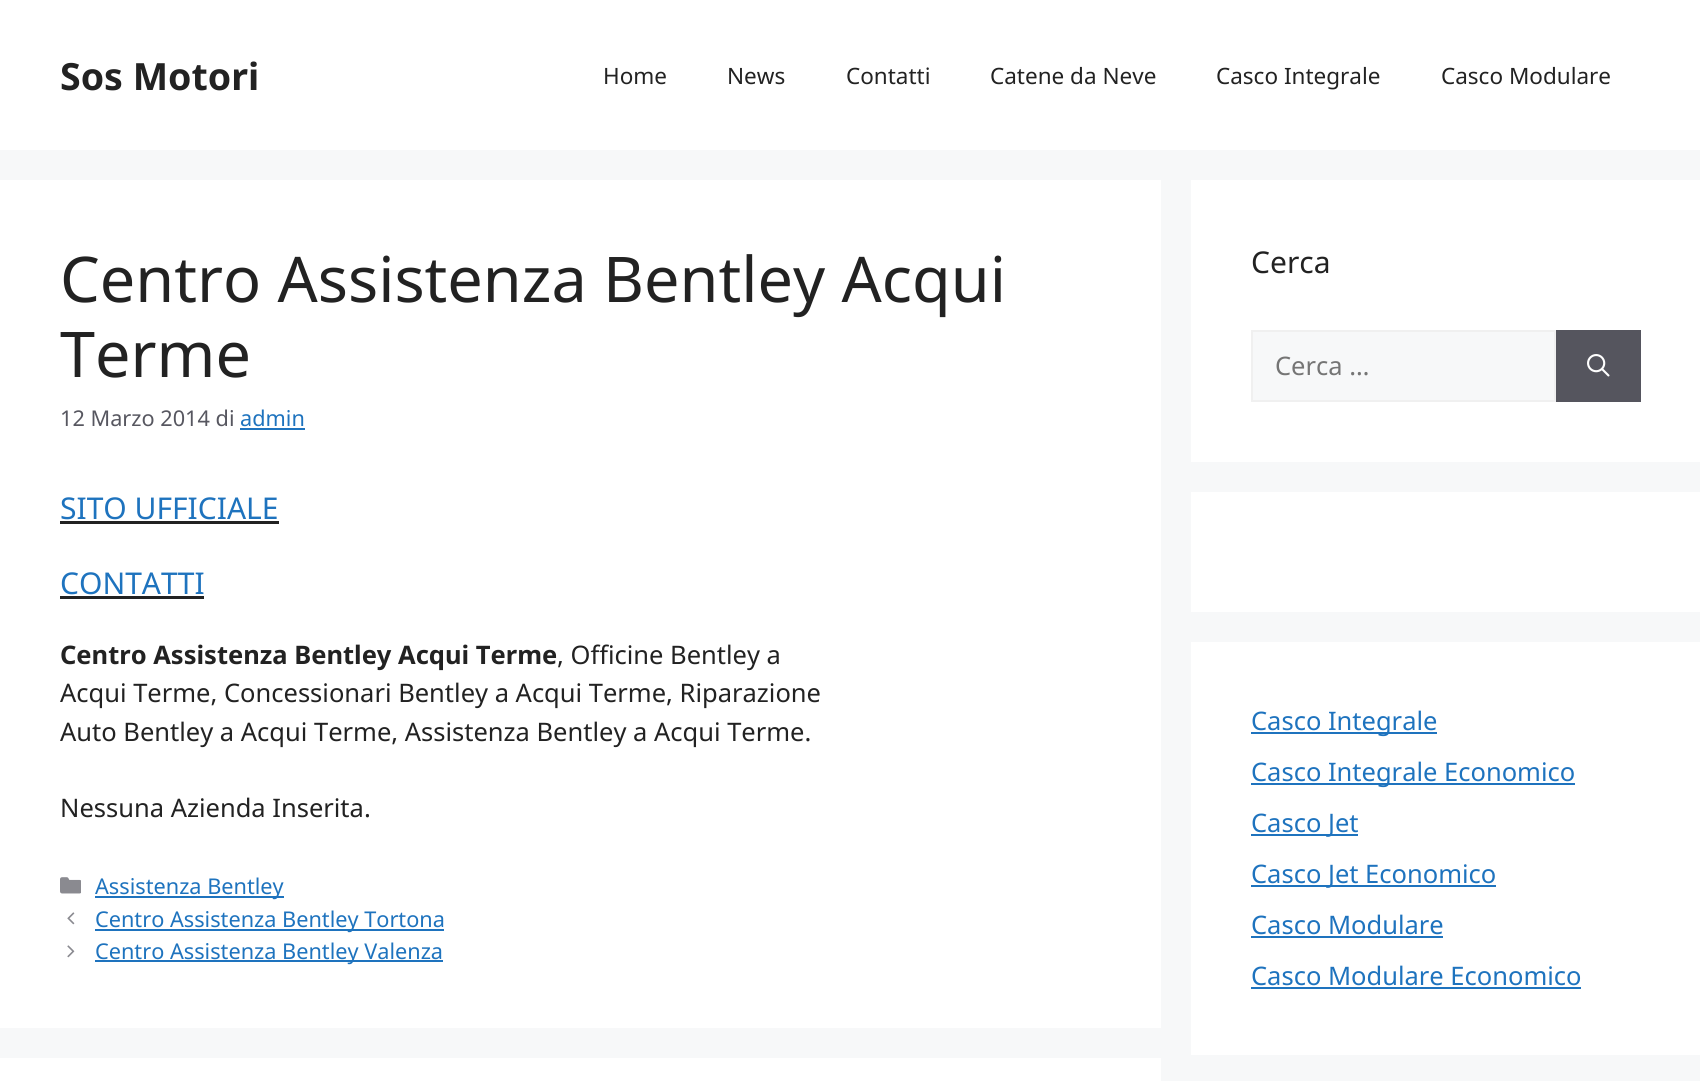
#include <cairo/cairo.h>
#include <math.h>
#include <stddef.h>

typedef struct { double x, y; const char *s; } line_t;
typedef struct { double x, y, w, h; unsigned color; } box_t;
static cairo_t *cr;

static void rgb(unsigned color)
{
	cairo_set_source_rgb(cr, (color >> 16) / 255.0, (color >> 8 & 255) / 255.0, (color & 255) / 255.0);
}

static void image(const char *path, double x, double y, double w, double h)
{
	cairo_surface_t *image = cairo_image_surface_create_from_png(path);
	cairo_save(cr);
	cairo_set_source_surface(cr, image, x, y);
	cairo_rectangle(cr, x, y, w, h);
	cairo_fill(cr);
	cairo_restore(cr);
	cairo_surface_destroy(image);
}

int main(void) {
	cairo_surface_t *surface = cairo_image_surface_create(CAIRO_FORMAT_RGB24, 1700, 1081);
	cr = cairo_create(surface);
	cairo_font_options_t *options = cairo_font_options_create();
	cairo_font_options_set_hint_metrics(options, CAIRO_HINT_METRICS_OFF);
	cairo_font_options_set_hint_style(options, CAIRO_HINT_STYLE_NONE);
	cairo_set_font_options(cr, options);
	cairo_set_miter_limit(cr, 4);
	rgb(0xf7f8f9);
	cairo_paint(cr);
	{
		static const box_t items[] = {
			{0, 0, 1700, 150, 0xffffff},
			{0, 180, 1161, 848, 0xffffff},
			{240, 428, 65, 2, 0x1e73be},
			{60, 521, 219, 3, 0x222222},
			{60, 596, 144, 3, 0x222222},
		};
		for (size_t i = 0; i < sizeof items / sizeof *items; i++) {
			rgb(items[i].color);
			cairo_rectangle(cr, items[i].x, items[i].y, items[i].w, items[i].h);
			cairo_fill(cr);
		}
	}
	image("img/1.png", 60, 877, 21, 17);
	rgb(0x1e73be);
	cairo_rectangle(cr, 95, 896, 189, 2);
	cairo_fill(cr);
	image("img/2.png", 67, 912, 8, 13);
	cairo_rectangle(cr, 95, 929, 349, 2);
	cairo_fill(cr);
	image("img/3.png", 67, 945, 8, 13);
	{
		static const box_t items[] = {
			{95, 960, 348, 2, 0x1e73be},
			{0, 1058, 1161, 23, 0xffffff},
			{1191, 180, 509, 282, 0xffffff},
		};
		for (size_t i = 0; i < sizeof items / sizeof *items; i++) {
			rgb(items[i].color);
			cairo_rectangle(cr, items[i].x, items[i].y, items[i].w, items[i].h);
			cairo_fill(cr);
		}
	}
	rgb(0xf7f8f9);
	cairo_rectangle(cr, 1252, 331, 303, 70);
	cairo_fill_preserve(cr);
	rgb(0xf0f0f0);
	cairo_stroke(cr);
	rgb(0x55555e);
	cairo_rectangle(cr, 1556, 330, 85, 72);
	cairo_fill(cr);
	image("img/4.png", 1587, 354, 23, 23);
	{
		static const box_t items[] = {
			{1191, 492, 509, 120, 0xffffff},
			{1191, 642, 509, 413, 0xffffff},
			{1251, 732, 186, 2, 0x1e73be},
			{1251, 783, 324, 2, 0x1e73be},
			{1251, 834, 107, 2, 0x1e73be},
			{1251, 885, 245, 2, 0x1e73be},
			{1251, 936, 192, 2, 0x1e73be},
			{1251, 987, 330, 2, 0x1e73be},
		};
		for (size_t i = 0; i < sizeof items / sizeof *items; i++) {
			rgb(items[i].color);
			cairo_rectangle(cr, items[i].x, items[i].y, items[i].w, items[i].h);
			cairo_fill(cr);
		}
	}
	cairo_select_font_face(cr, "Noto Sans", CAIRO_FONT_SLANT_NORMAL, CAIRO_FONT_WEIGHT_BOLD);
	cairo_set_font_size(cr, 37.5);
	rgb(0x222222);
	cairo_move_to(cr, 60, 90);
	cairo_show_text(cr, "Sos Motori");
	cairo_select_font_face(cr, "Noto Sans", CAIRO_FONT_SLANT_NORMAL, CAIRO_FONT_WEIGHT_NORMAL);
	cairo_set_font_size(cr, 22.5);
	{
		static const line_t items[] = {
			{603, 84, "Home"},
			{727, 84, "News"},
			{846, 84, "Contatti"},
			{990, 84, "Catene da Neve"},
			{1216, 84, "Casco Integrale"},
			{1441, 84, "Casco Modulare"},
		};
		for (size_t i = 0; i < sizeof items / sizeof *items; i++) {
			cairo_move_to(cr, items[i].x, items[i].y);
			cairo_show_text(cr, items[i].s);
		}
	}
	cairo_set_font_size(cr, 63);
	cairo_move_to(cr, 60, 302);
	cairo_show_text(cr, "Centro Assistenza Bentley Acqui");
	cairo_move_to(cr, 60, 377);
	cairo_show_text(cr, "Terme");
	cairo_set_font_size(cr, 21.7);
	rgb(0x575760);
	cairo_move_to(cr, 60, 426);
	cairo_show_text(cr, "12 Marzo 2014 di");
	rgb(0x1e73be);
	cairo_move_to(cr, 240, 426);
	cairo_show_text(cr, "admin");
	cairo_set_font_size(cr, 30);
	cairo_move_to(cr, 60, 519);
	cairo_show_text(cr, "SITO UFFICIALE");
	cairo_move_to(cr, 60, 594);
	cairo_show_text(cr, "CONTATTI");
	cairo_select_font_face(cr, "Noto Sans", CAIRO_FONT_SLANT_NORMAL, CAIRO_FONT_WEIGHT_BOLD);
	cairo_set_font_size(cr, 25.5);
	rgb(0x222222);
	cairo_move_to(cr, 60, 664);
	cairo_show_text(cr, "Centro Assistenza Bentley Acqui Terme");
	cairo_select_font_face(cr, "Noto Sans", CAIRO_FONT_SLANT_NORMAL, CAIRO_FONT_WEIGHT_NORMAL);
	{
		static const line_t items[] = {
			{557, 664, ", Officine Bentley a"},
			{60, 702, "Acqui Terme, Concessionari Bentley a Acqui Terme, Riparazione"},
			{60, 741, "Auto Bentley a Acqui Terme, Assistenza Bentley a Acqui Terme."},
			{60, 817, "Nessuna Azienda Inserita."},
		};
		for (size_t i = 0; i < sizeof items / sizeof *items; i++) {
			cairo_move_to(cr, items[i].x, items[i].y);
			cairo_show_text(cr, items[i].s);
		}
	}
	cairo_set_font_size(cr, 21.7);
	rgb(0x1e73be);
	{
		static const line_t items[] = {
			{95, 894, "Assistenza Bentley"},
			{95, 927, "Centro Assistenza Bentley Tortona"},
			{95, 959, "Centro Assistenza Bentley Valenza"},
		};
		for (size_t i = 0; i < sizeof items / sizeof *items; i++) {
			cairo_move_to(cr, items[i].x, items[i].y);
			cairo_show_text(cr, items[i].s);
		}
	}
	cairo_set_font_size(cr, 30);
	rgb(0x222222);
	cairo_move_to(cr, 1251, 273);
	cairo_show_text(cr, "Cerca");
	cairo_set_font_size(cr, 25.5);
	rgb(0x757575);
	cairo_move_to(cr, 1275, 375);
	cairo_show_text(cr, "Cerca …");
	rgb(0x1e73be);
	{
		static const line_t items[] = {
			{1251, 730, "Casco Integrale"},
			{1251, 781, "Casco Integrale Economico"},
			{1251, 832, "Casco Jet"},
			{1251, 883, "Casco Jet Economico"},
			{1251, 934, "Casco Modulare"},
			{1251, 985, "Casco Modulare Economico"},
		};
		for (size_t i = 0; i < sizeof items / sizeof *items; i++) {
			cairo_move_to(cr, items[i].x, items[i].y);
			cairo_show_text(cr, items[i].s);
		}
	}
	cairo_surface_write_to_png(surface, "page.png");
	cairo_font_options_destroy(options);
	cairo_destroy(cr);
	cairo_surface_destroy(surface);
	return 0;
}
